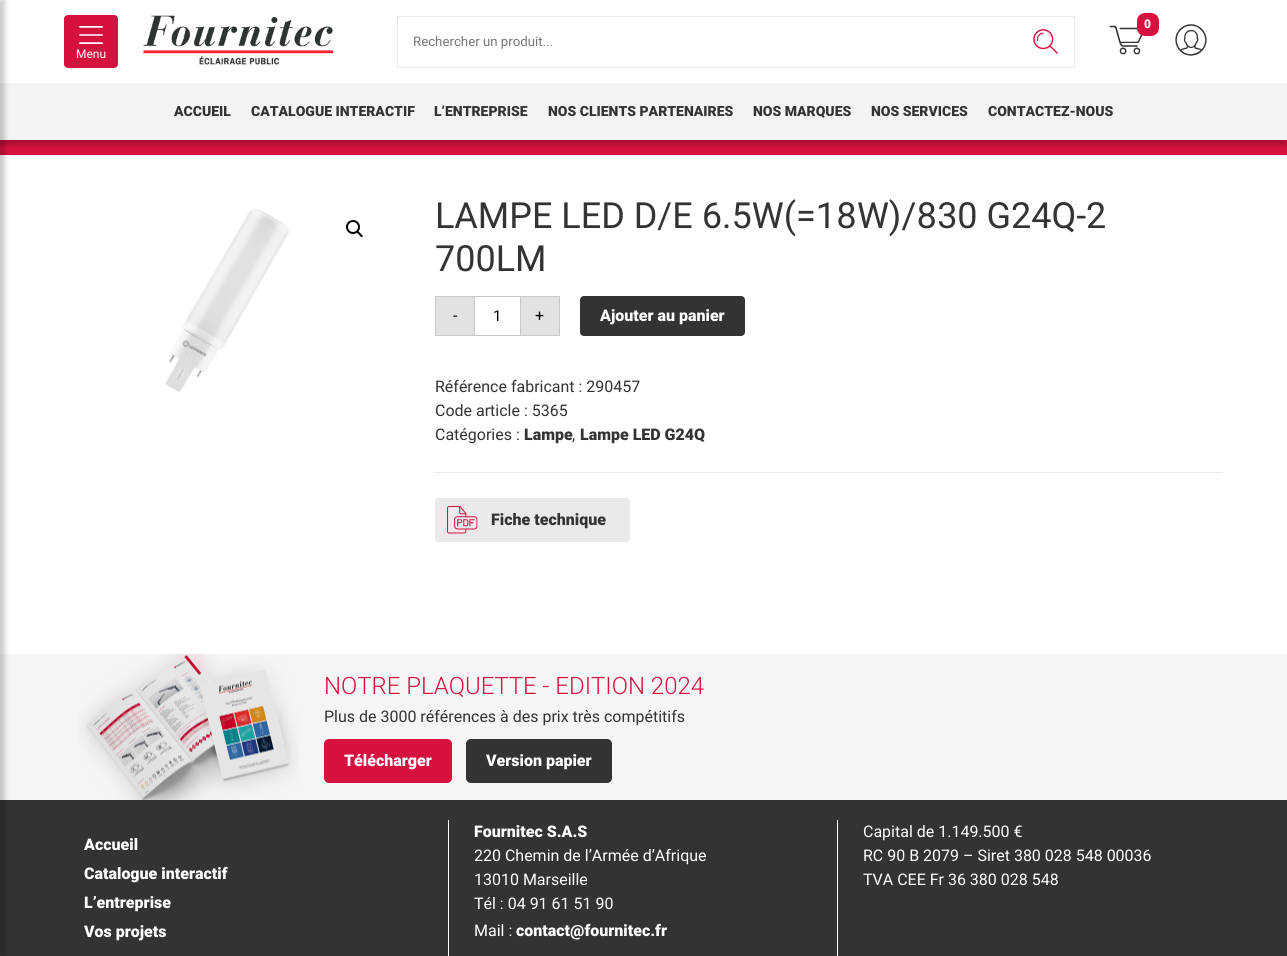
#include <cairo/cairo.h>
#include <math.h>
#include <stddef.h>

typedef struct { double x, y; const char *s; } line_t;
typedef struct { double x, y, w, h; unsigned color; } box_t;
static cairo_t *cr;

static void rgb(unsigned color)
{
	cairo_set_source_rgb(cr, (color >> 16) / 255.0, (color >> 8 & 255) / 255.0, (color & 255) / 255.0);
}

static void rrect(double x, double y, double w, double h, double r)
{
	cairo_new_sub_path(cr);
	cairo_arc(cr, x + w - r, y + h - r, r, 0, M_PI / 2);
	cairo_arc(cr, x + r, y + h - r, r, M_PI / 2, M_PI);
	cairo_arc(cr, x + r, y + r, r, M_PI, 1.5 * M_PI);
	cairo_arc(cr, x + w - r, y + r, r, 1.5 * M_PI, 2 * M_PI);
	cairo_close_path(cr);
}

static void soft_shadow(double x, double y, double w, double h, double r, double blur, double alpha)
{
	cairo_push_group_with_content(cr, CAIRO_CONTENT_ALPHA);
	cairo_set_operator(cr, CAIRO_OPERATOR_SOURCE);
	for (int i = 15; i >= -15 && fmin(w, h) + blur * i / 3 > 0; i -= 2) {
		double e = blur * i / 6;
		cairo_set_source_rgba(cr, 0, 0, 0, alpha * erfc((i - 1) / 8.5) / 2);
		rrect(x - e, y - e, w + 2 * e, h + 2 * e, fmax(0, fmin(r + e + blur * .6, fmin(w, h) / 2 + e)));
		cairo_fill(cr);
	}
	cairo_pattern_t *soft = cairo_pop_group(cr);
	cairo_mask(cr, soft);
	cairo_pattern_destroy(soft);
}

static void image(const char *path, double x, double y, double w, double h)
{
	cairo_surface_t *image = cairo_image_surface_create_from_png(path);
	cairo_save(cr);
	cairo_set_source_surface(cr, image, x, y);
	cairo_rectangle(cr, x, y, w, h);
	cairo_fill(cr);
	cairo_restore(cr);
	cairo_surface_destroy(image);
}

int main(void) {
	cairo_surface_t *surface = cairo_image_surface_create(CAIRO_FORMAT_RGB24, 1287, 956);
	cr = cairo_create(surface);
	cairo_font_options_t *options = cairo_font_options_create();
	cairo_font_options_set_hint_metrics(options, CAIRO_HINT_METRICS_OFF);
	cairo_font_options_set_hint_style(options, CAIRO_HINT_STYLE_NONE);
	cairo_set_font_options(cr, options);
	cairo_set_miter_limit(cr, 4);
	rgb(0xffffff);
	cairo_paint(cr);
	rgb(0xd61140);
	cairo_rectangle(cr, 0, 140, 1287, 15);
	cairo_fill(cr);
	cairo_save(cr);
	cairo_rectangle(cr, 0, 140, 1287, 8);
	cairo_clip(cr);
	rgb(0x000000);
	soft_shadow(0, 5, 1287, 140, 0, 2.5, 0.2);
	cairo_restore(cr);
	{
		static const box_t items[] = {
			{0, 83, 1287, 57, 0xf3f3f3},
			{0, 654, 1287, 146, 0xf5f5f5},
			{0, 800, 1287, 156, 0x333333},
		};
		for (size_t i = 0; i < sizeof items / sizeof *items; i++) {
			rgb(items[i].color);
			cairo_rectangle(cr, items[i].x, items[i].y, items[i].w, items[i].h);
			cairo_fill(cr);
		}
	}
	rgb(0x000000);
	soft_shadow(-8, 0, 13, 956, 0, 2.5, 0.2);
	image("img/1.png", 1109, 25, 34, 30);
	rgb(0xd61140);
	rrect(1137, 13, 22, 23, 8);
	cairo_fill(cr);
	image("img/2.png", 1175, 24, 32, 32);
	cairo_rectangle(cr, 397.5, 16.5, 677, 51);
	rgb(0xeaeaea);
	cairo_set_line_width(cr, 1);
	cairo_stroke(cr);
	image("img/3.png", 1033, 29, 25, 25);
	rgb(0xd61140);
	rrect(64, 15, 54, 53, 4);
	cairo_fill(cr);
	image("img/4.png", 79, 26, 24, 18);
	image("img/5.png", 143, 15, 191, 50);
	image("img/6.png", 165, 208, 124, 185);
	cairo_arc(cr, 353, 227, 6, 0, 2 * M_PI);
	rgb(0x000000);
	cairo_set_line_width(cr, 2);
	cairo_stroke(cr);
	cairo_new_path(cr);
	cairo_move_to(cr, 357, 231);
	cairo_curve_to(cr, 358, 230, 359.5, 232.5, 360.5, 233.5);
	cairo_curve_to(cr, 361, 234, 363.5, 235.5, 362.5, 237);
	cairo_curve_to(cr, 361.5, 238, 359.5, 235.5, 359, 234.5);
	cairo_curve_to(cr, 358.5, 234, 355.5, 232.5, 357, 231);
	cairo_close_path(cr);
	cairo_fill(cr);
	rgb(0xe2e2e2);
	cairo_rectangle(cr, 435.5, 296.5, 39, 39);
	cairo_fill_preserve(cr);
	rgb(0xcac9c9);
	cairo_set_line_width(cr, 1);
	cairo_stroke(cr);
	cairo_rectangle(cr, 475, 296, 45, 1);
	cairo_fill(cr);
	cairo_rectangle(cr, 475, 335, 45, 1);
	cairo_fill(cr);
	rgb(0xe2e2e2);
	cairo_rectangle(cr, 520.5, 296.5, 39, 39);
	cairo_fill_preserve(cr);
	rgb(0xcac9c9);
	cairo_stroke(cr);
	rgb(0x333333);
	rrect(580, 296, 165, 40, 4);
	cairo_fill(cr);
	rgb(0xeaeaea);
	cairo_rectangle(cr, 435, 472, 788, 1);
	cairo_fill(cr);
	rgb(0xebe9eb);
	rrect(435, 498, 195, 44, 3);
	cairo_fill(cr);
	image("img/7.png", 447, 506, 31, 28);
	image("img/8.png", 79, 654, 221, 146);
	rgb(0xd61140);
	rrect(324, 739, 128, 44, 5);
	cairo_fill(cr);
	rgb(0x333333);
	rrect(466, 739, 146, 44, 5);
	cairo_fill(cr);
	rgb(0xffffff);
	cairo_rectangle(cr, 448, 820, 1, 136);
	cairo_fill(cr);
	cairo_rectangle(cr, 837, 820, 1, 136);
	cairo_fill(cr);
	cairo_select_font_face(cr, "Roboto Black", CAIRO_FONT_SLANT_NORMAL, CAIRO_FONT_WEIGHT_NORMAL);
	cairo_set_font_size(cr, 12);
	cairo_move_to(cr, 1144, 28);
	cairo_show_text(cr, "0");
	cairo_select_font_face(cr, "Roboto", CAIRO_FONT_SLANT_NORMAL, CAIRO_FONT_WEIGHT_NORMAL);
	cairo_set_font_size(cr, 13.25);
	rgb(0x757575);
	cairo_move_to(cr, 413, 46);
	cairo_show_text(cr, "Rechercher un produit...");
	cairo_set_font_size(cr, 12);
	rgb(0xffffff);
	cairo_move_to(cr, 76, 58);
	cairo_show_text(cr, "Menu");
	cairo_select_font_face(cr, "Roboto Black", CAIRO_FONT_SLANT_NORMAL, CAIRO_FONT_WEIGHT_NORMAL);
	cairo_set_font_size(cr, 14);
	rgb(0x333333);
	{
		static const line_t items[] = {
			{174, 116, "ACCUEIL"},
			{251, 116, "CATALOGUE INTERACTIF"},
			{434, 116, "L’ENTREPRISE"},
			{548, 116, "NOS CLIENTS PARTENAIRES"},
			{753, 116, "NOS MARQUES"},
			{871, 116, "NOS SERVICES"},
			{988, 116, "CONTACTEZ-NOUS"},
		};
		for (size_t i = 0; i < sizeof items / sizeof *items; i++) {
			cairo_move_to(cr, items[i].x, items[i].y);
			cairo_show_text(cr, items[i].s);
		}
	}
	cairo_select_font_face(cr, "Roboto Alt", CAIRO_FONT_SLANT_NORMAL, CAIRO_FONT_WEIGHT_NORMAL);
	cairo_set_font_size(cr, 36);
	cairo_move_to(cr, 435, 228);
	cairo_show_text(cr, "LAMPE LED D/E 6.5W(=18W)/830 G24Q-2");
	cairo_select_font_face(cr, "Roboto", CAIRO_FONT_SLANT_NORMAL, CAIRO_FONT_WEIGHT_NORMAL);
	cairo_move_to(cr, 435, 271);
	cairo_show_text(cr, "700LM");
	cairo_set_font_size(cr, 16);
	rgb(0x000000);
	cairo_move_to(cr, 453, 321);
	cairo_show_text(cr, "-");
	cairo_set_font_size(cr, 15);
	cairo_move_to(cr, 493, 321);
	cairo_show_text(cr, "1");
	cairo_set_font_size(cr, 16);
	cairo_move_to(cr, 535, 321);
	cairo_show_text(cr, "+");
	cairo_select_font_face(cr, "Roboto Black", CAIRO_FONT_SLANT_NORMAL, CAIRO_FONT_WEIGHT_NORMAL);
	rgb(0xffffff);
	cairo_move_to(cr, 600, 321);
	cairo_show_text(cr, "Ajouter au panier");
	cairo_select_font_face(cr, "Roboto", CAIRO_FONT_SLANT_NORMAL, CAIRO_FONT_WEIGHT_NORMAL);
	rgb(0x333333);
	{
		static const line_t items[] = {
			{435, 392, "Référence fabricant : 290457"},
			{435, 416, "Code article : 5365"},
			{435, 440, "Catégories :"},
		};
		for (size_t i = 0; i < sizeof items / sizeof *items; i++) {
			cairo_move_to(cr, items[i].x, items[i].y);
			cairo_show_text(cr, items[i].s);
		}
	}
	cairo_select_font_face(cr, "Roboto Black", CAIRO_FONT_SLANT_NORMAL, CAIRO_FONT_WEIGHT_NORMAL);
	cairo_move_to(cr, 524, 440);
	cairo_show_text(cr, "Lampe");
	cairo_select_font_face(cr, "Roboto", CAIRO_FONT_SLANT_NORMAL, CAIRO_FONT_WEIGHT_NORMAL);
	cairo_move_to(cr, 572, 440);
	cairo_show_text(cr, ",");
	cairo_select_font_face(cr, "Roboto Black", CAIRO_FONT_SLANT_NORMAL, CAIRO_FONT_WEIGHT_NORMAL);
	cairo_move_to(cr, 580, 440);
	cairo_show_text(cr, "Lampe LED G24Q");
	cairo_move_to(cr, 491, 525);
	cairo_show_text(cr, "Fiche technique");
	cairo_select_font_face(cr, "Roboto Light", CAIRO_FONT_SLANT_NORMAL, CAIRO_FONT_WEIGHT_NORMAL);
	cairo_set_font_size(cr, 24);
	rgb(0xd61140);
	cairo_move_to(cr, 324, 694);
	cairo_show_text(cr, "NOTRE PLAQUETTE - EDITION 2024");
	cairo_select_font_face(cr, "Roboto", CAIRO_FONT_SLANT_NORMAL, CAIRO_FONT_WEIGHT_NORMAL);
	cairo_set_font_size(cr, 16);
	rgb(0x333333);
	cairo_move_to(cr, 324, 722);
	cairo_show_text(cr, "Plus de 3000 références à des prix très compétitifs");
	cairo_select_font_face(cr, "Roboto Black", CAIRO_FONT_SLANT_NORMAL, CAIRO_FONT_WEIGHT_NORMAL);
	rgb(0xffffff);
	{
		static const line_t items[] = {
			{344, 766, "Télécharger"},
			{486, 766, "Version papier"},
			{84, 850, "Accueil"},
			{84, 879, "Catalogue interactif"},
			{84, 908, "L’entreprise"},
			{84, 937, "Vos projets"},
			{474, 837, "Fournitec S.A.S"},
		};
		for (size_t i = 0; i < sizeof items / sizeof *items; i++) {
			cairo_move_to(cr, items[i].x, items[i].y);
			cairo_show_text(cr, items[i].s);
		}
	}
	cairo_select_font_face(cr, "Roboto", CAIRO_FONT_SLANT_NORMAL, CAIRO_FONT_WEIGHT_NORMAL);
	{
		static const line_t items[] = {
			{474, 861, "220 Chemin de l’Armée d’Afrique"},
			{474, 885, "13010 Marseille"},
			{474, 909, "Tél : 04 91 61 51 90"},
			{474, 936, "Mail :"},
		};
		for (size_t i = 0; i < sizeof items / sizeof *items; i++) {
			cairo_move_to(cr, items[i].x, items[i].y);
			cairo_show_text(cr, items[i].s);
		}
	}
	cairo_select_font_face(cr, "Roboto Black", CAIRO_FONT_SLANT_NORMAL, CAIRO_FONT_WEIGHT_NORMAL);
	cairo_move_to(cr, 516, 936);
	cairo_show_text(cr, "contact@fournitec.fr");
	cairo_select_font_face(cr, "Roboto", CAIRO_FONT_SLANT_NORMAL, CAIRO_FONT_WEIGHT_NORMAL);
	{
		static const line_t items[] = {
			{863, 837, "Capital de 1.149.500 €"},
			{863, 861, "RC 90 B 2079 – Siret 380 028 548 00036"},
			{863, 885, "TVA CEE Fr 36 380 028 548"},
		};
		for (size_t i = 0; i < sizeof items / sizeof *items; i++) {
			cairo_move_to(cr, items[i].x, items[i].y);
			cairo_show_text(cr, items[i].s);
		}
	}
	cairo_surface_write_to_png(surface, "page.png");
	cairo_font_options_destroy(options);
	cairo_destroy(cr);
	cairo_surface_destroy(surface);
	return 0;
}
